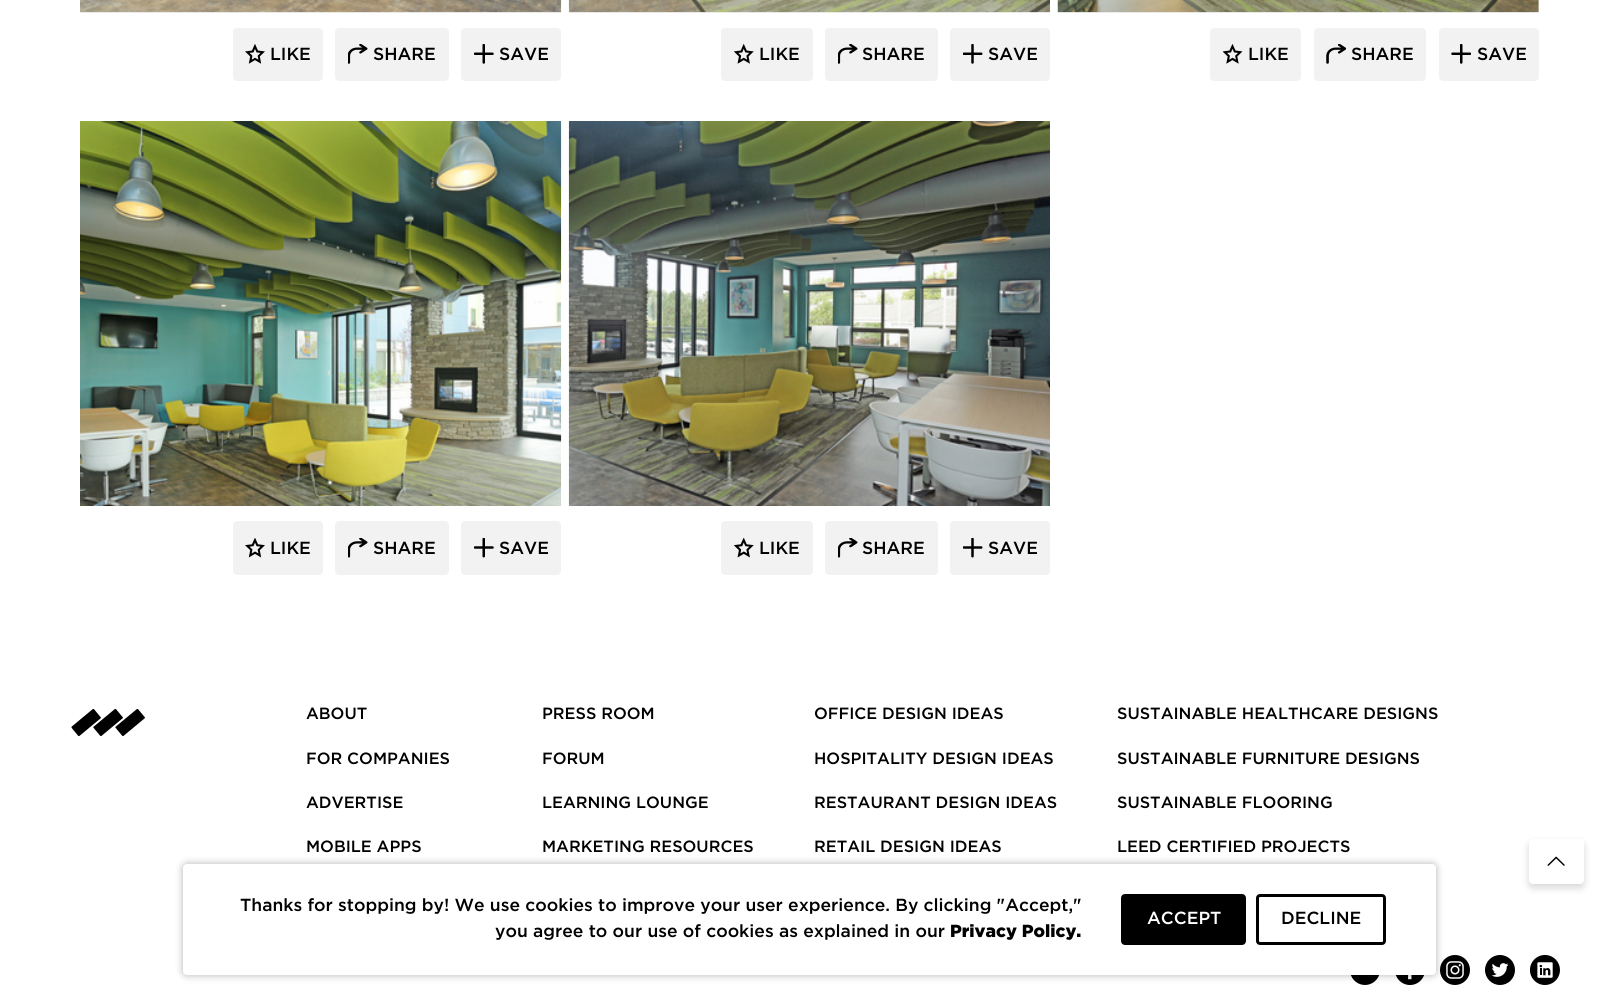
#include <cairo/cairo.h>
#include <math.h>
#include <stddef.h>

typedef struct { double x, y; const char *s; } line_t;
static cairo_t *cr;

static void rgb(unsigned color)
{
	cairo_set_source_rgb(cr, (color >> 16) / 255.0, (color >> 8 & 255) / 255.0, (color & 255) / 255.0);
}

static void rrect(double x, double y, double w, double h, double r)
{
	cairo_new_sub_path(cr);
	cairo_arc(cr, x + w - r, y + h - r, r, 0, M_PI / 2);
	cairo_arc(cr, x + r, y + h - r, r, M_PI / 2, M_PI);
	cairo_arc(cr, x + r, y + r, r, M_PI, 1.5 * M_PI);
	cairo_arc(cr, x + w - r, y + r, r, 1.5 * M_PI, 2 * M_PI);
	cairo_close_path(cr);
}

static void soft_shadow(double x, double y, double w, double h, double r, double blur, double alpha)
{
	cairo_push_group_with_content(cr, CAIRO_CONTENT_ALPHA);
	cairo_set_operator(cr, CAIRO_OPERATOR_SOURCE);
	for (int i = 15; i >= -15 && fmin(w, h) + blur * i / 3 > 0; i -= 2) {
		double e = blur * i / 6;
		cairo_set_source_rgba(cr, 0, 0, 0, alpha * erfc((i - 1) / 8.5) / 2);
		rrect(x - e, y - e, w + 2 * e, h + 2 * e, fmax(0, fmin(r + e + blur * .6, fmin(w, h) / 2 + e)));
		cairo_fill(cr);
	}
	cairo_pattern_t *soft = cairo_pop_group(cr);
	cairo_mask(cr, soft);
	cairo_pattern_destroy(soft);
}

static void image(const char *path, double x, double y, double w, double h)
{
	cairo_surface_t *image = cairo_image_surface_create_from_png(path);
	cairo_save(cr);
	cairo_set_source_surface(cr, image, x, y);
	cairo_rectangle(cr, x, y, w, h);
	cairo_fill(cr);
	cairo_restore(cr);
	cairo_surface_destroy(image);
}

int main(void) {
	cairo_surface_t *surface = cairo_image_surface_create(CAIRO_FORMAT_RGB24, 1618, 1008);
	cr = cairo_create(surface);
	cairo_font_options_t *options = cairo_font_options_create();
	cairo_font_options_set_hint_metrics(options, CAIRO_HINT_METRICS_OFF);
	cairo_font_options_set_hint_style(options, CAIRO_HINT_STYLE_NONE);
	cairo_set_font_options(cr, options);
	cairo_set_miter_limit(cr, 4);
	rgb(0xffffff);
	cairo_paint(cr);
	rgb(0xeeeeee);
	cairo_rectangle(cr, 80, 12, 481, 1);
	cairo_fill(cr);
	image("img/1.png", 80, 0, 482, 13);
	rgb(0xf2f2f2);
	rrect(233, 28, 90, 53, 4);
	cairo_fill(cr);
	image("img/2.png", 245, 44, 20, 20);
	rrect(335, 28, 114, 53, 4);
	cairo_fill(cr);
	image("img/3.png", 348, 44, 20, 20);
	rrect(461, 28, 100, 53, 4);
	cairo_fill(cr);
	image("img/4.png", 474, 44, 20, 20);
	rgb(0xeeeeee);
	cairo_rectangle(cr, 569, 12, 481, 1);
	cairo_fill(cr);
	image("img/5.png", 568, 0, 482, 13);
	rgb(0xf2f2f2);
	rrect(721, 28, 92, 53, 4);
	cairo_fill(cr);
	image("img/6.png", 734, 44, 20, 20);
	rrect(825, 28, 113, 53, 4);
	cairo_fill(cr);
	image("img/3.png", 838, 44, 20, 20);
	rrect(950, 28, 100, 53, 4);
	cairo_fill(cr);
	image("img/7.png", 963, 44, 20, 20);
	rgb(0xeeeeee);
	cairo_rectangle(cr, 1058, 0, 481, 13);
	cairo_fill(cr);
	image("img/8.png", 1057, 0, 482, 13);
	rgb(0xf2f2f2);
	rrect(1210, 28, 91, 53, 4);
	cairo_fill(cr);
	image("img/9.png", 1223, 44, 20, 20);
	rrect(1314, 28, 112, 53, 4);
	cairo_fill(cr);
	image("img/10.png", 1326, 44, 20, 20);
	rrect(1439, 28, 100, 53, 4);
	cairo_fill(cr);
	image("img/11.png", 1451, 44, 20, 20);
	image("img/12.png", 80, 121, 482, 385);
	rrect(233, 521, 90, 54, 4);
	cairo_fill(cr);
	image("img/13.png", 245, 538, 20, 20);
	rrect(335, 521, 114, 54, 4);
	cairo_fill(cr);
	image("img/14.png", 348, 538, 20, 20);
	rrect(461, 521, 100, 54, 4);
	cairo_fill(cr);
	image("img/15.png", 474, 538, 20, 20);
	image("img/16.png", 568, 121, 482, 385);
	rrect(721, 521, 92, 54, 4);
	cairo_fill(cr);
	image("img/17.png", 734, 538, 20, 20);
	rrect(825, 521, 113, 54, 4);
	cairo_fill(cr);
	image("img/14.png", 838, 538, 20, 20);
	rrect(950, 521, 100, 54, 4);
	cairo_fill(cr);
	image("img/18.png", 963, 538, 20, 20);
	image("img/19.png", 71, 709, 74, 27);
	image("img/20.png", 1351, 975, 29, 10);
	image("img/21.png", 1395, 975, 30, 10);
	image("img/22.png", 1440, 955, 30, 30);
	image("img/23.png", 1485, 955, 30, 30);
	image("img/24.png", 1530, 955, 30, 30);
	rgb(0x000000);
	soft_shadow(1529, 843, 55, 45, 4, 4, 0.16);
	rgb(0xffffff);
	rrect(1529, 839, 55, 45, 4);
	cairo_fill(cr);
	image("img/25.png", 1547, 856, 18, 10);
	rgb(0x000000);
	soft_shadow(183, 864, 1253, 111, 4, 4, 0.3);
	rgb(0xffffff);
	rrect(183, 864, 1253, 111, 4);
	cairo_fill(cr);
	rgb(0x000000);
	rrect(1122.5, 895.5, 122, 48, 2.5);
	cairo_fill_preserve(cr);
	cairo_set_line_width(cr, 3);
	cairo_stroke(cr);
	rrect(1257.5, 895.5, 127, 48, 2.5);
	cairo_stroke(cr);
	cairo_select_font_face(cr, "Gotham Medium", CAIRO_FONT_SLANT_NORMAL, CAIRO_FONT_WEIGHT_NORMAL);
	cairo_set_font_size(cr, 17.5);
	{
		static const line_t items[] = {
			{270, 60, "LIKE"},
			{373, 60, "SHARE"},
			{499, 60, "SAVE"},
			{759, 60, "LIKE"},
			{862, 60, "SHARE"},
			{988, 60, "SAVE"},
			{1248, 60, "LIKE"},
			{1351, 60, "SHARE"},
			{1477, 60, "SAVE"},
			{270, 554, "LIKE"},
			{373, 554, "SHARE"},
			{499, 554, "SAVE"},
			{759, 554, "LIKE"},
			{862, 554, "SHARE"},
			{988, 554, "SAVE"},
		};
		for (size_t i = 0; i < sizeof items / sizeof *items; i++) {
			cairo_move_to(cr, items[i].x, items[i].y);
			cairo_show_text(cr, items[i].s);
		}
	}
	cairo_set_font_size(cr, 16.25);
	{
		static const line_t items[] = {
			{306, 719, "ABOUT"},
			{306, 764, "FOR COMPANIES"},
			{306, 808, "ADVERTISE"},
			{306, 852, "MOBILE APPS"},
			{542, 719, "PRESS ROOM"},
			{542, 764, "FORUM"},
			{542, 808, "LEARNING LOUNGE"},
			{542, 852, "MARKETING RESOURCES"},
			{814, 719, "OFFICE DESIGN IDEAS"},
			{814, 764, "HOSPITALITY DESIGN IDEAS"},
			{814, 808, "RESTAURANT DESIGN IDEAS"},
			{814, 852, "RETAIL DESIGN IDEAS"},
			{1117, 719, "SUSTAINABLE HEALTHCARE DESIGNS"},
			{1117, 764, "SUSTAINABLE FURNITURE DESIGNS"},
			{1117, 808, "SUSTAINABLE FLOORING"},
			{1117, 852, "LEED CERTIFIED PROJECTS"},
		};
		for (size_t i = 0; i < sizeof items / sizeof *items; i++) {
			cairo_move_to(cr, items[i].x, items[i].y);
			cairo_show_text(cr, items[i].s);
		}
	}
	cairo_set_font_size(cr, 17.5);
	cairo_move_to(cr, 240, 911);
	cairo_show_text(cr, "Thanks for stopping by! We use cookies to improve your user experience. By clicking \"Accept,\"");
	cairo_move_to(cr, 495, 937);
	cairo_show_text(cr, "you agree to our use of cookies as explained in our");
	cairo_select_font_face(cr, "Gotham Black", CAIRO_FONT_SLANT_NORMAL, CAIRO_FONT_WEIGHT_NORMAL);
	cairo_move_to(cr, 950, 937);
	cairo_show_text(cr, "Privacy Policy.");
	cairo_select_font_face(cr, "Gotham Medium", CAIRO_FONT_SLANT_NORMAL, CAIRO_FONT_WEIGHT_NORMAL);
	rgb(0xffffff);
	cairo_move_to(cr, 1147, 924);
	cairo_show_text(cr, "ACCEPT");
	rgb(0x000000);
	cairo_move_to(cr, 1281, 924);
	cairo_show_text(cr, "DECLINE");
	cairo_surface_write_to_png(surface, "page.png");
	cairo_font_options_destroy(options);
	cairo_destroy(cr);
	cairo_surface_destroy(surface);
	return 0;
}
